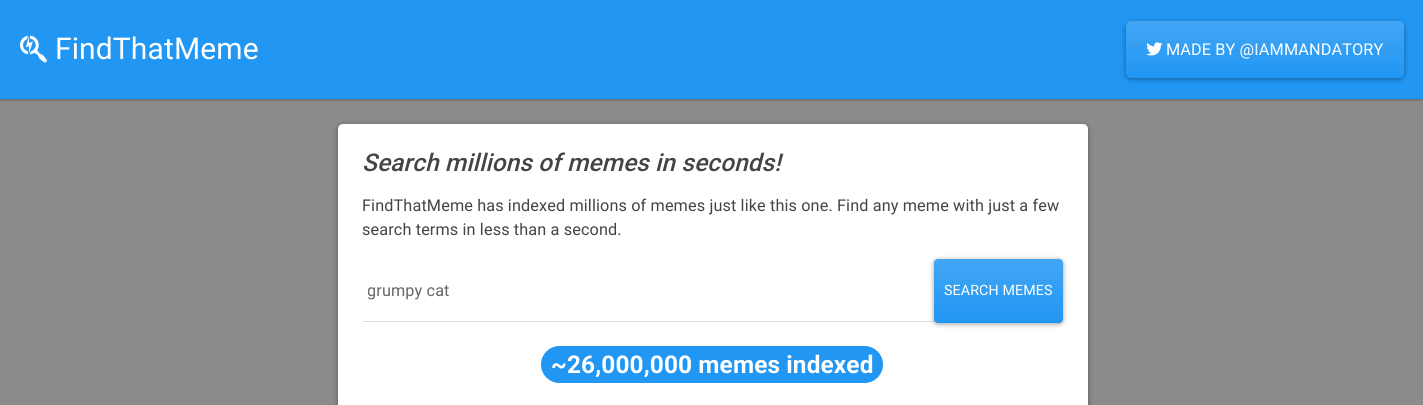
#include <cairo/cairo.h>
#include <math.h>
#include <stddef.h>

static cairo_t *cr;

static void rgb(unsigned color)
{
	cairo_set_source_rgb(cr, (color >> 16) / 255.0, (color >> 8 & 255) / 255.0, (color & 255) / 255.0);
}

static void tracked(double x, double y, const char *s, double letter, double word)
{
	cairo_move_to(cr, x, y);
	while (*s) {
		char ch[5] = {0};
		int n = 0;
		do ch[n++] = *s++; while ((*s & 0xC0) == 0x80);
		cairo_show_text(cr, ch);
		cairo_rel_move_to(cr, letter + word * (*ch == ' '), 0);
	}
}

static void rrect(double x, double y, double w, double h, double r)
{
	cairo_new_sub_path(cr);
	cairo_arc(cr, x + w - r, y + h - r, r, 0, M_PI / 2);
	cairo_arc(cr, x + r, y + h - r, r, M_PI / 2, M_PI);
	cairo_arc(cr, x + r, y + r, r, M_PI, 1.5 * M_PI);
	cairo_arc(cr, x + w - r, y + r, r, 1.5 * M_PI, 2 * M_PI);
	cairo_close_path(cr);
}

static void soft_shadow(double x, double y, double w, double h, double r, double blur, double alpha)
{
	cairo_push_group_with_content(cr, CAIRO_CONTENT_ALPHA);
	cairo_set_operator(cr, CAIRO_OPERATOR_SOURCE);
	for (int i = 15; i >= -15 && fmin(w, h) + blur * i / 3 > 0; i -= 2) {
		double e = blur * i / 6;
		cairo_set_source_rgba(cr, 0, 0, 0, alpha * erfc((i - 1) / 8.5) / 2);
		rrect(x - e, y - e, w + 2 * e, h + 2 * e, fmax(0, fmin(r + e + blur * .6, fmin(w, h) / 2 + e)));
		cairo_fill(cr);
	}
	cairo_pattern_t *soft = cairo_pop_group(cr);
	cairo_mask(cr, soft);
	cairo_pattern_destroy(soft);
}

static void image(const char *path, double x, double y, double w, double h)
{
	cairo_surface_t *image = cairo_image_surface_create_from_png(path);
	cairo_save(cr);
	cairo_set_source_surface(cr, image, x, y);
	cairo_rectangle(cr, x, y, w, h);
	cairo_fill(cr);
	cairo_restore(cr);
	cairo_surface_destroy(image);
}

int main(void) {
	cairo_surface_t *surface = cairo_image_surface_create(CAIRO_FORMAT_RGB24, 1423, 405);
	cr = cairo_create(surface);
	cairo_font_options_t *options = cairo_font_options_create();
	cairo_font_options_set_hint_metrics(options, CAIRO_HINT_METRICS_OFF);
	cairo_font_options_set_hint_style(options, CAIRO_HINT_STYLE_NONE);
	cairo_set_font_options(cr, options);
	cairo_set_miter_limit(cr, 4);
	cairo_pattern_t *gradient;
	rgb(0x8b8b8b);
	cairo_paint(cr);
	rgb(0x000000);
	soft_shadow(0, 1, 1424, 99, 0, 1, 0.3);
	rgb(0x2196f3);
	cairo_rectangle(cr, 0, 0, 1423, 99);
	cairo_fill(cr);
	image("img/1.png", 20, 35, 27, 28);
	rgb(0x000000);
	soft_shadow(1126, 23, 278, 56, 5, 2.5, 0.4);
	gradient = cairo_pattern_create_linear(1265, 21, 1265, 78);
	cairo_pattern_add_color_stop_rgba(gradient, 0, 0.259, 0.651, 0.961, 1);
	cairo_pattern_add_color_stop_rgba(gradient, 1, 0.129, 0.588, 0.953, 1);
	cairo_set_source(cr, gradient);
	cairo_pattern_destroy(gradient);
	rrect(1126, 21, 278, 57, 5);
	cairo_fill(cr);
	image("img/2.png", 1146, 42, 17, 14);
	rgb(0x000000);
	soft_shadow(338, 125, 750, 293, 5, 2.5, 0.4);
	rgb(0xffffff);
	rrect(338, 124, 750, 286, 5);
	cairo_fill(cr);
	rgb(0xdddddd);
	cairo_rectangle(cr, 363, 321, 571, 1);
	cairo_fill(cr);
	rgb(0x000000);
	soft_shadow(934, 260, 129, 64, 4, 2.5, 0.4);
	gradient = cairo_pattern_create_linear(998, 259, 998, 323);
	cairo_pattern_add_color_stop_rgba(gradient, 0, 0.259, 0.651, 0.961, 1);
	cairo_pattern_add_color_stop_rgba(gradient, 1, 0.129, 0.588, 0.953, 1);
	cairo_set_source(cr, gradient);
	cairo_pattern_destroy(gradient);
	rrect(934, 259, 129, 64, 4);
	cairo_fill(cr);
	rgb(0x2196f3);
	rrect(541, 346, 342, 37, 18.5);
	cairo_fill(cr);
	cairo_select_font_face(cr, "Roboto", CAIRO_FONT_SLANT_NORMAL, CAIRO_FONT_WEIGHT_NORMAL);
	cairo_set_font_size(cr, 30);
	rgb(0xffffff);
	tracked(55, 59, "FindThatMeme", 0.12, 0);
	cairo_set_font_size(cr, 16.25);
	tracked(1166, 55, "MADE BY @IAMMANDATORY", 0.12, 0);
	cairo_select_font_face(cr, "Roboto Medium", CAIRO_FONT_SLANT_ITALIC, CAIRO_FONT_WEIGHT_NORMAL);
	cairo_set_font_size(cr, 24.4);
	rgb(0x444444);
	tracked(362, 171, "Search millions of memes in seconds!", 0.12, 0);
	cairo_select_font_face(cr, "Roboto", CAIRO_FONT_SLANT_NORMAL, CAIRO_FONT_WEIGHT_NORMAL);
	cairo_set_font_size(cr, 16.25);
	tracked(362, 211, "FindThatMeme has indexed millions of memes just like this one. Find any meme with just a few", 0.12, 0);
	tracked(362, 235, "search terms in less than a second.", 0.12, 0);
	cairo_save(cr);
	cairo_rectangle(cr, 368, 281, 561, 19);
	cairo_clip(cr);
	rgb(0x666666);
	tracked(367, 296, "grumpy cat", 0.12, 0);
	cairo_restore(cr);
	cairo_set_font_size(cr, 14.25);
	rgb(0xffffff);
	tracked(944, 295, "SEARCH MEMES", 0.12, 0);
	cairo_select_font_face(cr, "Roboto", CAIRO_FONT_SLANT_NORMAL, CAIRO_FONT_WEIGHT_BOLD);
	cairo_set_font_size(cr, 24.4);
	tracked(551, 373, "~26,000,000 memes indexed", 0.12, 0);
	cairo_surface_write_to_png(surface, "page.png");
	cairo_font_options_destroy(options);
	cairo_destroy(cr);
	cairo_surface_destroy(surface);
	return 0;
}
